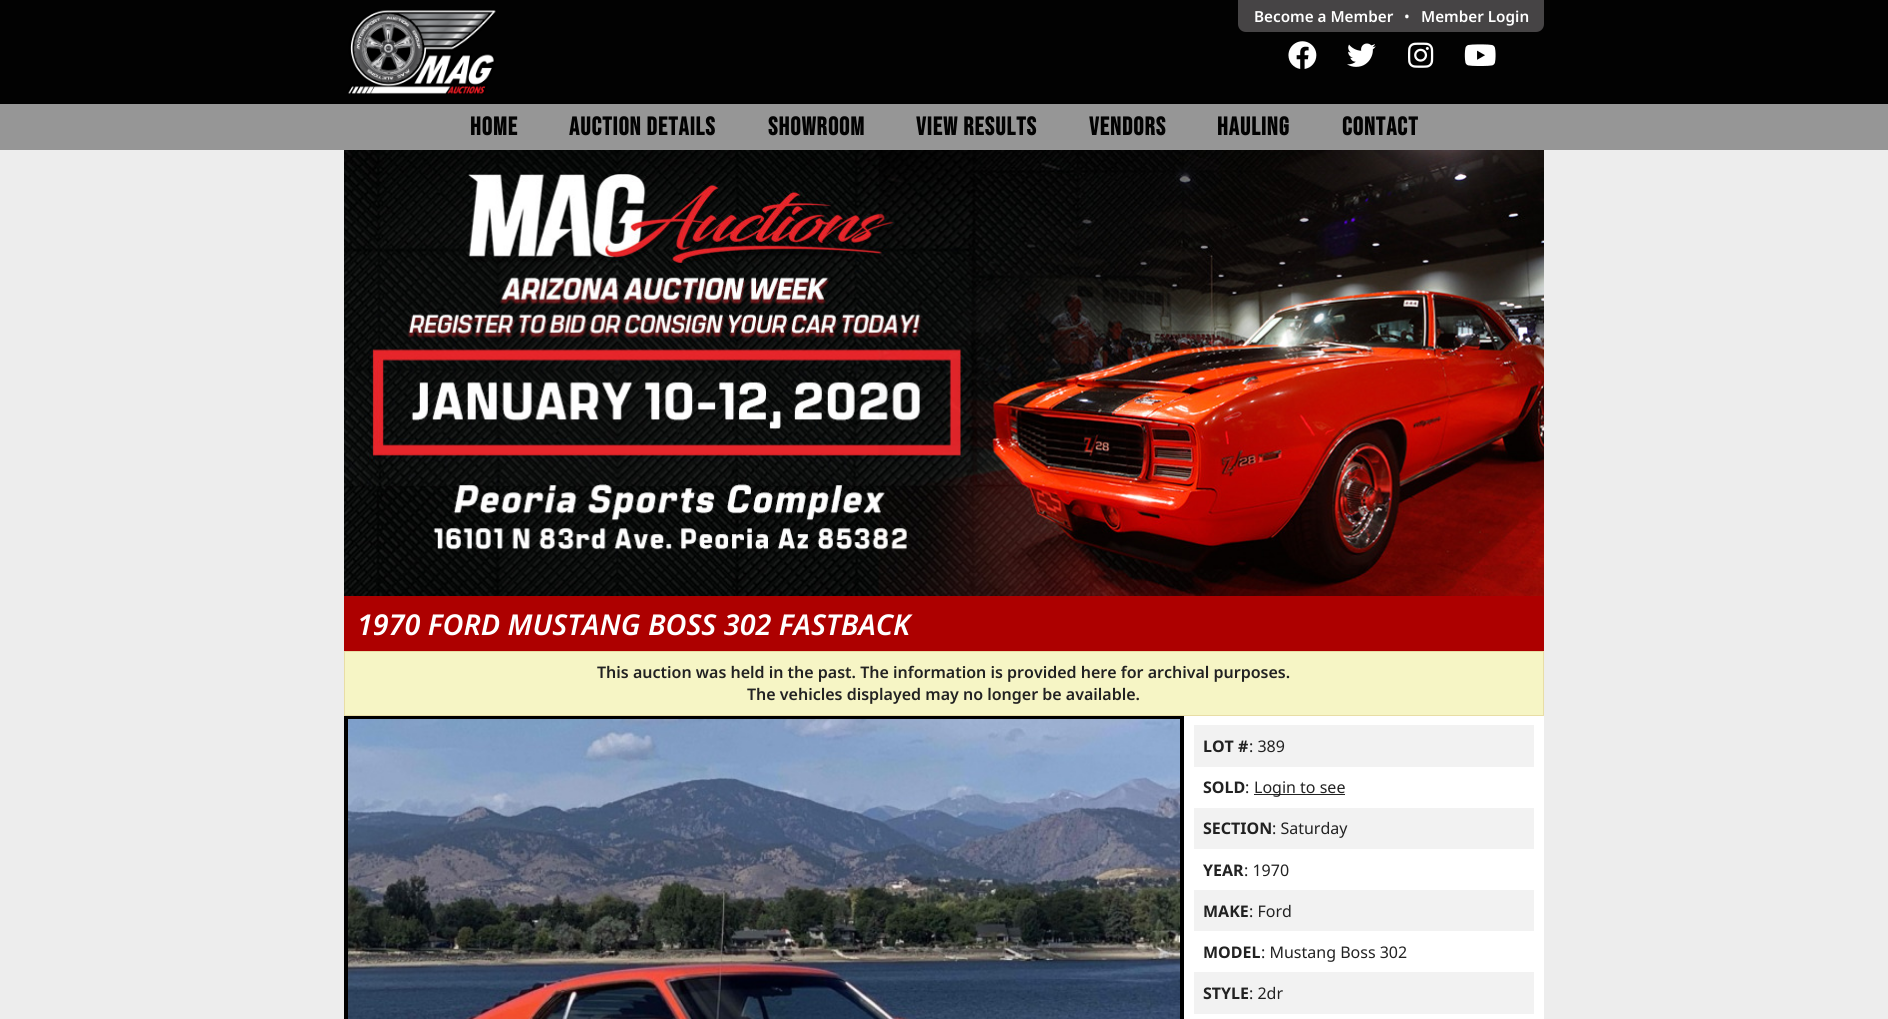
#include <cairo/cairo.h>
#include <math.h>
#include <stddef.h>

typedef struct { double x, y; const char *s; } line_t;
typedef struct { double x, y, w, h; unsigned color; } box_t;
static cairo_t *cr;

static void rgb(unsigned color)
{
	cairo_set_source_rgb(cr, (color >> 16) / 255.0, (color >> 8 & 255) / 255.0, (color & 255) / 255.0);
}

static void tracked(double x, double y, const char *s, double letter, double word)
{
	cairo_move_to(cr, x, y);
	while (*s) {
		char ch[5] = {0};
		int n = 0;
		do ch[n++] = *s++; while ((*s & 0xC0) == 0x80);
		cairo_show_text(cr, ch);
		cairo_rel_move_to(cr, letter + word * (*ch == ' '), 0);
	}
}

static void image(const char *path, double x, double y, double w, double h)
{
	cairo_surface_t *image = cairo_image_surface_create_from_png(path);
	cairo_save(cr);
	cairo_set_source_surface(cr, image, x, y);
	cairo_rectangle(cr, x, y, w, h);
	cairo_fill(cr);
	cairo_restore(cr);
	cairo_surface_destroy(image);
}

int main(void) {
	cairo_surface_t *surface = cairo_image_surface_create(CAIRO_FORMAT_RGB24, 1888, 1019);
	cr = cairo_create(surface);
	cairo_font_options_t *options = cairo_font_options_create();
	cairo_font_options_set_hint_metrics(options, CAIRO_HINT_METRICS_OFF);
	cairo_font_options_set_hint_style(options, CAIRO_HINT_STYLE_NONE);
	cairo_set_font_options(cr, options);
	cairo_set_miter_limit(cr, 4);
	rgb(0x020202);
	cairo_paint(cr);
	image("img/1.png", 348, 10, 148, 84);
	rgb(0x464445);
	cairo_new_path(cr);
	cairo_move_to(cr, 1238, 0);
	cairo_line_to(cr, 1544, 0);
	cairo_line_to(cr, 1544, 24);
	cairo_curve_to(cr, 1544, 28.5, 1540.5, 32, 1536, 32);
	cairo_line_to(cr, 1246, 32);
	cairo_curve_to(cr, 1241.5, 32, 1238, 28.5, 1238, 24);
	cairo_close_path(cr);
	cairo_fill(cr);
	image("img/2.png", 1288, 41, 29, 28);
	image("img/3.png", 1347, 43, 29, 24);
	image("img/4.png", 1408, 42, 26, 26);
	image("img/5.png", 1464, 44, 32, 22);
	rgb(0x969696);
	cairo_rectangle(cr, 0, 104, 1888, 46);
	cairo_fill(cr);
	rgb(0xededed);
	cairo_rectangle(cr, 0, 150, 1888, 869);
	cairo_fill(cr);
	image("img/6.png", 344, 150, 1200, 446);
	rgb(0xad0000);
	cairo_rectangle(cr, 344, 596, 1200, 55);
	cairo_fill(cr);
	rgb(0xf6f5c5);
	cairo_rectangle(cr, 344.5, 651.5, 1199, 64);
	cairo_fill_preserve(cr);
	rgb(0xe8dda5);
	cairo_set_line_width(cr, 1);
	cairo_stroke(cr);
	rgb(0xffffff);
	cairo_rectangle(cr, 1184, 716, 360, 303);
	cairo_fill(cr);
	rgb(0x000000);
	cairo_rectangle(cr, 344, 716, 840, 303);
	cairo_fill(cr);
	image("img/7.png", 348, 719, 832, 300);
	{
		static const box_t items[] = {
			{1194, 725, 340, 42, 0xf2f2f2},
			{1254, 794, 91, 1, 0x222222},
			{1194, 808, 340, 41, 0xf2f2f2},
			{1194, 890, 340, 41, 0xf2f2f2},
			{1194, 972, 340, 42, 0xf2f2f2},
		};
		for (size_t i = 0; i < sizeof items / sizeof *items; i++) {
			rgb(items[i].color);
			cairo_rectangle(cr, items[i].x, items[i].y, items[i].w, items[i].h);
			cairo_fill(cr);
		}
	}
	cairo_select_font_face(cr, "Noto Sans SemiBold", CAIRO_FONT_SLANT_NORMAL, CAIRO_FONT_WEIGHT_NORMAL);
	cairo_set_font_size(cr, 15.25);
	rgb(0xffffff);
	cairo_move_to(cr, 1254, 22);
	cairo_show_text(cr, "Become a Member");
	cairo_select_font_face(cr, "Noto Sans", CAIRO_FONT_SLANT_NORMAL, CAIRO_FONT_WEIGHT_NORMAL);
	cairo_move_to(cr, 1404, 22);
	cairo_show_text(cr, "•");
	cairo_select_font_face(cr, "Noto Sans SemiBold", CAIRO_FONT_SLANT_NORMAL, CAIRO_FONT_WEIGHT_NORMAL);
	cairo_move_to(cr, 1421, 22);
	cairo_show_text(cr, "Member Login");
	cairo_select_font_face(cr, "Bebas Neue", CAIRO_FONT_SLANT_NORMAL, CAIRO_FONT_WEIGHT_BOLD);
	cairo_set_font_size(cr, 25.5);
	rgb(0x020202);
	{
		static const line_t items[] = {
			{470, 135, "HOME"},
			{569, 135, "AUCTION DETAILS"},
			{768, 135, "SHOWROOM"},
			{916, 135, "VIEW RESULTS"},
			{1089, 135, "VENDORS"},
			{1217, 135, "HAULING"},
			{1342, 135, "CONTACT"},
		};
		for (size_t i = 0; i < sizeof items / sizeof *items; i++) {
			tracked(items[i].x, items[i].y, items[i].s, 1, 0);
		}
	}
	cairo_select_font_face(cr, "Noto Sans SemiBold", CAIRO_FONT_SLANT_ITALIC, CAIRO_FONT_WEIGHT_NORMAL);
	cairo_set_font_size(cr, 28.75);
	rgb(0xffffff);
	cairo_move_to(cr, 357, 635);
	cairo_show_text(cr, "1970 FORD MUSTANG BOSS 302 FASTBACK");
	cairo_select_font_face(cr, "Noto Sans SemiBold", CAIRO_FONT_SLANT_NORMAL, CAIRO_FONT_WEIGHT_NORMAL);
	cairo_set_font_size(cr, 16);
	rgb(0x222222);
	cairo_move_to(cr, 597, 678);
	cairo_show_text(cr, "This auction was held in the past. The information is provided here for archival purposes.");
	cairo_move_to(cr, 747, 700);
	cairo_show_text(cr, "The vehicles displayed may no longer be available.");
	cairo_select_font_face(cr, "Noto Sans", CAIRO_FONT_SLANT_NORMAL, CAIRO_FONT_WEIGHT_BOLD);
	cairo_move_to(cr, 1203, 752);
	cairo_show_text(cr, "LOT #");
	cairo_select_font_face(cr, "Noto Sans", CAIRO_FONT_SLANT_NORMAL, CAIRO_FONT_WEIGHT_NORMAL);
	cairo_move_to(cr, 1249, 752);
	cairo_show_text(cr, ": 389");
	cairo_select_font_face(cr, "Noto Sans", CAIRO_FONT_SLANT_NORMAL, CAIRO_FONT_WEIGHT_BOLD);
	cairo_move_to(cr, 1203, 793);
	cairo_show_text(cr, "SOLD");
	cairo_select_font_face(cr, "Noto Sans", CAIRO_FONT_SLANT_NORMAL, CAIRO_FONT_WEIGHT_NORMAL);
	cairo_move_to(cr, 1245, 793);
	cairo_show_text(cr, ":");
	cairo_move_to(cr, 1254, 793);
	cairo_show_text(cr, "Login to see");
	cairo_select_font_face(cr, "Noto Sans", CAIRO_FONT_SLANT_NORMAL, CAIRO_FONT_WEIGHT_BOLD);
	cairo_move_to(cr, 1203, 834);
	cairo_show_text(cr, "SECTION");
	cairo_select_font_face(cr, "Noto Sans", CAIRO_FONT_SLANT_NORMAL, CAIRO_FONT_WEIGHT_NORMAL);
	cairo_move_to(cr, 1272, 834);
	cairo_show_text(cr, ": Saturday");
	cairo_select_font_face(cr, "Noto Sans", CAIRO_FONT_SLANT_NORMAL, CAIRO_FONT_WEIGHT_BOLD);
	cairo_move_to(cr, 1203, 876);
	cairo_show_text(cr, "YEAR");
	cairo_select_font_face(cr, "Noto Sans", CAIRO_FONT_SLANT_NORMAL, CAIRO_FONT_WEIGHT_NORMAL);
	cairo_move_to(cr, 1244, 876);
	cairo_show_text(cr, ": 1970");
	cairo_select_font_face(cr, "Noto Sans", CAIRO_FONT_SLANT_NORMAL, CAIRO_FONT_WEIGHT_BOLD);
	cairo_move_to(cr, 1203, 917);
	cairo_show_text(cr, "MAKE");
	cairo_select_font_face(cr, "Noto Sans", CAIRO_FONT_SLANT_NORMAL, CAIRO_FONT_WEIGHT_NORMAL);
	cairo_move_to(cr, 1249, 917);
	cairo_show_text(cr, ": Ford");
	cairo_select_font_face(cr, "Noto Sans", CAIRO_FONT_SLANT_NORMAL, CAIRO_FONT_WEIGHT_BOLD);
	cairo_move_to(cr, 1203, 958);
	cairo_show_text(cr, "MODEL");
	cairo_select_font_face(cr, "Noto Sans", CAIRO_FONT_SLANT_NORMAL, CAIRO_FONT_WEIGHT_NORMAL);
	cairo_move_to(cr, 1261, 958);
	cairo_show_text(cr, ": Mustang Boss 302");
	cairo_select_font_face(cr, "Noto Sans", CAIRO_FONT_SLANT_NORMAL, CAIRO_FONT_WEIGHT_BOLD);
	cairo_move_to(cr, 1203, 999);
	cairo_show_text(cr, "STYLE");
	cairo_select_font_face(cr, "Noto Sans", CAIRO_FONT_SLANT_NORMAL, CAIRO_FONT_WEIGHT_NORMAL);
	cairo_move_to(cr, 1249, 999);
	cairo_show_text(cr, ": 2dr");
	cairo_surface_write_to_png(surface, "page.png");
	cairo_font_options_destroy(options);
	cairo_destroy(cr);
	cairo_surface_destroy(surface);
	return 0;
}
